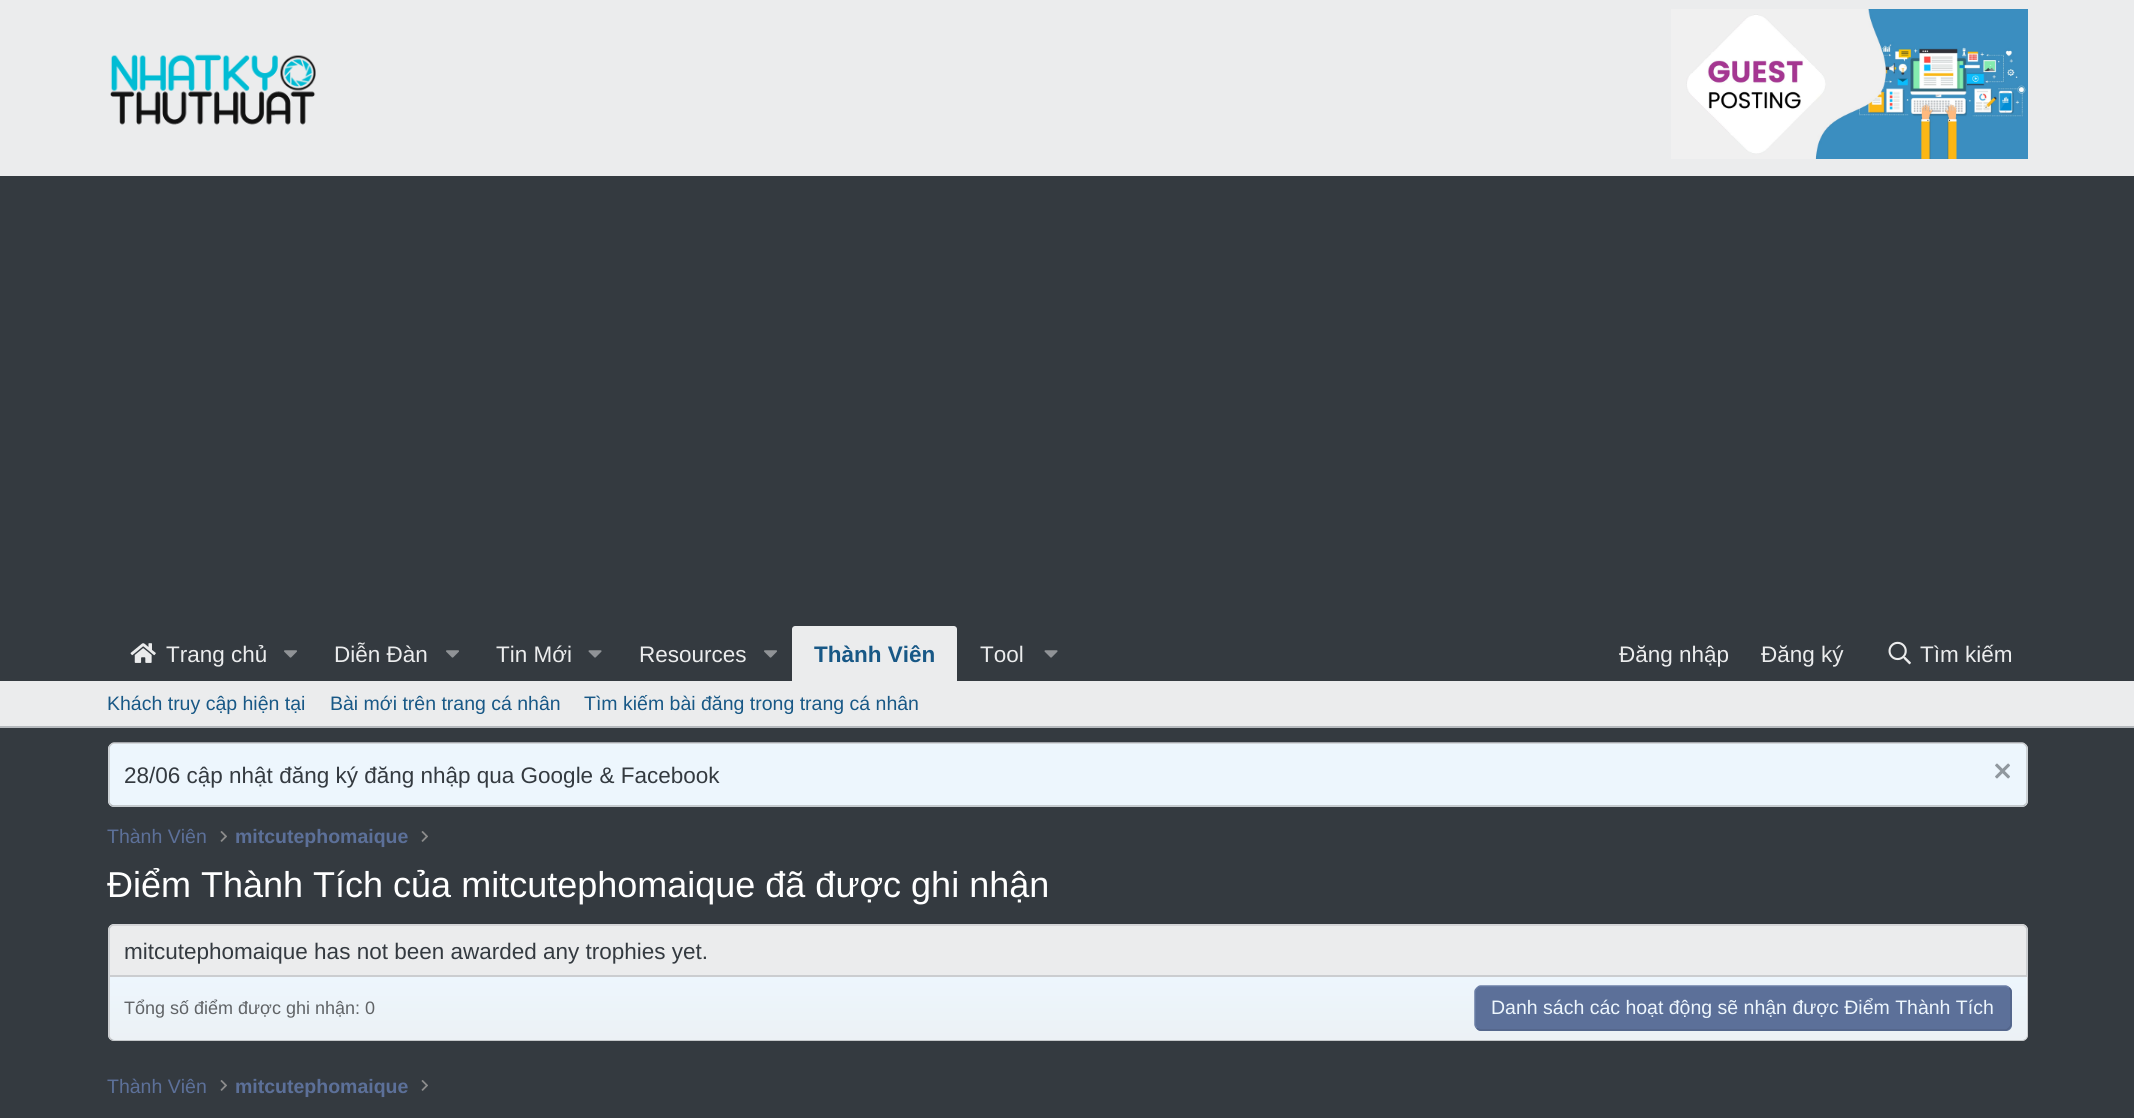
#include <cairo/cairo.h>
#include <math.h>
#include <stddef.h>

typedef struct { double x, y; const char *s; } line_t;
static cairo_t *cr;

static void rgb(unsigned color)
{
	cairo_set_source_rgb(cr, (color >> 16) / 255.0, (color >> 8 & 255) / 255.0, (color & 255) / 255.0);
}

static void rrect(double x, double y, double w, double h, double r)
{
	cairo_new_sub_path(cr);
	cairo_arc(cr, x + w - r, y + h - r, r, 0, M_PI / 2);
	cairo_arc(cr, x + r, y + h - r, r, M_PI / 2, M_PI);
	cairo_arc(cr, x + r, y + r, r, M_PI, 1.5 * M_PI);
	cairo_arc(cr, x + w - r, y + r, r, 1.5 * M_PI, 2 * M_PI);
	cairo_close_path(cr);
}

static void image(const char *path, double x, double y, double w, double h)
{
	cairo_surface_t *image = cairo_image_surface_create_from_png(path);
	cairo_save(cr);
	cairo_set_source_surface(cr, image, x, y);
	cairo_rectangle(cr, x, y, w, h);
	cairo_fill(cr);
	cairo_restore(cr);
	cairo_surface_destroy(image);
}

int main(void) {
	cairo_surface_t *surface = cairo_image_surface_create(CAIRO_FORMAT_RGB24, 2134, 1118);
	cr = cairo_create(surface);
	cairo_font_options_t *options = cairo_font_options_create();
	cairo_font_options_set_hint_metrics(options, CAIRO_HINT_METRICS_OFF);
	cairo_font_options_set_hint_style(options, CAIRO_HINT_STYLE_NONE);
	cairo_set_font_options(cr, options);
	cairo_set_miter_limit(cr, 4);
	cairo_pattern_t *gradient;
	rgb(0x343a40);
	cairo_paint(cr);
	rgb(0xebeced);
	cairo_rectangle(cr, 0, 0, 2134, 176);
	cairo_fill(cr);
	image("img/1.png", 110, 54, 206, 71);
	image("img/2.png", 1671, 9, 357, 150);
	image("img/3.png", 130, 643, 26, 20);
	image("img/4.png", 284, 650, 13, 8);
	image("img/4.png", 446, 650, 13, 8);
	image("img/5.png", 588, 650, 14, 8);
	image("img/4.png", 764, 650, 13, 8);
	cairo_new_path(cr);
	cairo_move_to(cr, 795, 626);
	cairo_line_to(cr, 954, 626);
	cairo_curve_to(cr, 955.5, 626, 957, 627.5, 957, 629);
	cairo_line_to(cr, 957, 681);
	cairo_line_to(cr, 792, 681);
	cairo_line_to(cr, 792, 629);
	cairo_curve_to(cr, 792, 627.5, 793.5, 626, 795, 626);
	cairo_close_path(cr);
	cairo_fill(cr);
	image("img/5.png", 1044, 650, 14, 8);
	image("img/6.png", 1888, 641, 23, 24);
	cairo_rectangle(cr, 0, 681, 2134, 45);
	cairo_fill(cr);
	rgb(0xb5b9bd);
	cairo_rectangle(cr, 0, 726, 2134, 2);
	cairo_fill(cr);
	rgb(0xedf6fd);
	rrect(108, 743, 1920, 64, 6);
	cairo_fill(cr);
	cairo_new_path(cr);
	cairo_move_to(cr, 110.5, 745);
	cairo_curve_to(cr, 111.5, 744, 112.5, 743, 114, 743);
	cairo_line_to(cr, 2022, 743);
	cairo_curve_to(cr, 2023.5, 743, 2024.5, 744, 2025.5, 745);
	rgb(0xcbcdd0);
	cairo_set_line_width(cr, 1.5);
	cairo_stroke(cr);
	cairo_new_path(cr);
	cairo_move_to(cr, 2025.5, 745);
	cairo_curve_to(cr, 2026.5, 746, 2027, 747, 2027, 748.5);
	cairo_line_to(cr, 2027, 801);
	cairo_curve_to(cr, 2027, 802.5, 2026.5, 803.5, 2025.5, 804.5);
	rgb(0xc3c6c9);
	cairo_stroke(cr);
	cairo_new_path(cr);
	cairo_move_to(cr, 2025.5, 804.5);
	cairo_curve_to(cr, 2024.5, 805.5, 2023.5, 806, 2022, 806);
	cairo_line_to(cr, 114, 806);
	cairo_curve_to(cr, 112.5, 806, 111.5, 805.5, 110.5, 804.5);
	rgb(0xb5b9bd);
	cairo_stroke(cr);
	cairo_new_path(cr);
	cairo_move_to(cr, 110.5, 804.5);
	cairo_curve_to(cr, 109.5, 803.5, 109, 802.5, 109, 801);
	cairo_line_to(cr, 109, 748.5);
	cairo_curve_to(cr, 109, 747, 109.5, 746, 110.5, 745);
	rgb(0xc3c6c9);
	cairo_stroke(cr);
	image("img/7.png", 1995, 763, 15, 16);
	image("img/8.png", 220, 831, 7, 11);
	image("img/8.png", 421, 831, 7, 11);
	rgb(0xebeced);
	rrect(108, 924, 1920, 117, 6);
	cairo_fill(cr);
	cairo_new_path(cr);
	cairo_move_to(cr, 110.5, 926.5);
	cairo_curve_to(cr, 111.5, 925.5, 112.5, 925, 114, 925);
	cairo_line_to(cr, 2022, 925);
	cairo_curve_to(cr, 2023.5, 925, 2024.5, 925.5, 2025.5, 926.5);
	rgb(0xcbcdd0);
	cairo_stroke(cr);
	cairo_new_path(cr);
	cairo_move_to(cr, 2025.5, 926.5);
	cairo_curve_to(cr, 2026.5, 927.5, 2027, 928.5, 2027, 930);
	cairo_line_to(cr, 2027, 1035);
	cairo_curve_to(cr, 2027, 1036.5, 2026.5, 1037.5, 2025.5, 1038.5);
	rgb(0xc3c6c9);
	cairo_stroke(cr);
	cairo_new_path(cr);
	cairo_move_to(cr, 2025.5, 1038.5);
	cairo_curve_to(cr, 2024.5, 1039.5, 2023.5, 1040, 2022, 1040);
	cairo_line_to(cr, 114, 1040);
	cairo_curve_to(cr, 112.5, 1040, 111.5, 1039.5, 110.5, 1038.5);
	rgb(0xb5b9bd);
	cairo_stroke(cr);
	cairo_new_path(cr);
	cairo_move_to(cr, 110.5, 1038.5);
	cairo_curve_to(cr, 109.5, 1037.5, 109, 1036.5, 109, 1035);
	cairo_line_to(cr, 109, 930);
	cairo_curve_to(cr, 109, 928.5, 109.5, 927.5, 110.5, 926.5);
	rgb(0xc3c6c9);
	cairo_stroke(cr);
	gradient = cairo_pattern_create_linear(1068, 976, 1068, 1040);
	cairo_pattern_add_color_stop_rgba(gradient, 0, 0.929, 0.965, 0.992, 1);
	cairo_pattern_add_color_stop_rgba(gradient, 1, 0.925, 0.945, 0.961, 1);
	cairo_set_source(cr, gradient);
	cairo_pattern_destroy(gradient);
	cairo_new_path(cr);
	cairo_move_to(cr, 110, 977);
	cairo_line_to(cr, 2027, 977);
	cairo_line_to(cr, 2027, 1035);
	cairo_curve_to(cr, 2027, 1038, 2025, 1040, 2022, 1040);
	cairo_line_to(cr, 115, 1040);
	cairo_curve_to(cr, 112, 1040, 110, 1038, 110, 1035);
	cairo_close_path(cr);
	cairo_fill(cr);
	rgb(0xcbcdd0);
	cairo_rectangle(cr, 110, 975, 1917, 2);
	cairo_fill(cr);
	rgb(0x5c7099);
	rrect(1475, 986, 537, 45, 6);
	cairo_fill(cr);
	cairo_new_path(cr);
	cairo_move_to(cr, 2009, 988);
	cairo_curve_to(cr, 2010, 989, 2011, 990, 2011, 991.5);
	cairo_line_to(cr, 2011, 1024.5);
	cairo_curve_to(cr, 2011, 1026, 2010, 1027, 2009, 1028);
	cairo_curve_to(cr, 2008, 1029, 2007, 1030, 2005.5, 1030);
	cairo_line_to(cr, 1480.5, 1030);
	cairo_curve_to(cr, 1479, 1030, 1478, 1029, 1477, 1028);
	rgb(0x526489);
	cairo_stroke(cr);
	cairo_new_path(cr);
	cairo_move_to(cr, 1477, 1028);
	cairo_curve_to(cr, 1476, 1027, 1475, 1026, 1475, 1024.5);
	cairo_line_to(cr, 1475, 991.5);
	cairo_curve_to(cr, 1475, 990, 1476, 989, 1477, 988);
	cairo_curve_to(cr, 1478, 987, 1479, 986, 1480.5, 986);
	cairo_line_to(cr, 2005.5, 986);
	cairo_curve_to(cr, 2007, 986, 2008, 987, 2009, 988);
	rgb(0x697da5);
	cairo_stroke(cr);
	image("img/8.png", 220, 1080, 7, 11);
	image("img/8.png", 421, 1080, 7, 11);
	cairo_select_font_face(cr, "Liberation Sans", CAIRO_FONT_SLANT_NORMAL, CAIRO_FONT_WEIGHT_NORMAL);
	cairo_set_font_size(cr, 22.5);
	rgb(0xebeced);
	{
		static const line_t items[] = {
			{166, 662, "Trang chủ"},
			{334, 662, "Diễn Đàn"},
			{496, 662, "Tin Mới"},
			{639, 662, "Resources"},
		};
		for (size_t i = 0; i < sizeof items / sizeof *items; i++) {
			cairo_move_to(cr, items[i].x, items[i].y);
			cairo_show_text(cr, items[i].s);
		}
	}
	cairo_select_font_face(cr, "Liberation Sans", CAIRO_FONT_SLANT_NORMAL, CAIRO_FONT_WEIGHT_BOLD);
	rgb(0x185886);
	cairo_move_to(cr, 814, 662);
	cairo_show_text(cr, "Thành Viên");
	cairo_select_font_face(cr, "Liberation Sans", CAIRO_FONT_SLANT_NORMAL, CAIRO_FONT_WEIGHT_NORMAL);
	rgb(0xebeced);
	{
		static const line_t items[] = {
			{980, 662, "Tool"},
			{1619, 662, "Đăng nhập"},
			{1761, 662, "Đăng ký"},
			{1920, 662, "Tìm kiếm"},
		};
		for (size_t i = 0; i < sizeof items / sizeof *items; i++) {
			cairo_move_to(cr, items[i].x, items[i].y);
			cairo_show_text(cr, items[i].s);
		}
	}
	cairo_set_font_size(cr, 19.5);
	rgb(0x185886);
	{
		static const line_t items[] = {
			{107, 710, "Khách truy cập hiện tại"},
			{330, 710, "Bài mới trên trang cá nhân"},
			{584, 710, "Tìm kiếm bài đăng trong trang cá nhân"},
		};
		for (size_t i = 0; i < sizeof items / sizeof *items; i++) {
			cairo_move_to(cr, items[i].x, items[i].y);
			cairo_show_text(cr, items[i].s);
		}
	}
	cairo_set_font_size(cr, 22.5);
	rgb(0x343a40);
	cairo_move_to(cr, 124, 783);
	cairo_show_text(cr, "28/06 cập nhật đăng ký đăng nhập qua Google & Facebook");
	cairo_set_font_size(cr, 19.5);
	rgb(0x5c7099);
	cairo_move_to(cr, 107, 843);
	cairo_show_text(cr, "Thành Viên");
	cairo_select_font_face(cr, "Liberation Sans", CAIRO_FONT_SLANT_NORMAL, CAIRO_FONT_WEIGHT_BOLD);
	cairo_move_to(cr, 235, 843);
	cairo_show_text(cr, "mitcutephomaique");
	cairo_select_font_face(cr, "Liberation Sans", CAIRO_FONT_SLANT_NORMAL, CAIRO_FONT_WEIGHT_NORMAL);
	cairo_set_font_size(cr, 36);
	rgb(0xffffff);
	cairo_move_to(cr, 107, 897);
	cairo_show_text(cr, "Điểm Thành Tích của mitcutephomaique đã được ghi nhận");
	cairo_set_font_size(cr, 22.5);
	rgb(0x343a40);
	cairo_move_to(cr, 124, 959);
	cairo_show_text(cr, "mitcutephomaique has not been awarded any trophies yet.");
	cairo_set_font_size(cr, 18);
	rgb(0x606366);
	cairo_move_to(cr, 124, 1014);
	cairo_show_text(cr, "Tổng số điểm được ghi nhận: 0");
	cairo_set_font_size(cr, 19.5);
	rgb(0xedf6fd);
	cairo_move_to(cr, 1491, 1014);
	cairo_show_text(cr, "Danh sách các hoạt động sẽ nhận được Điểm Thành Tích");
	rgb(0x5c7099);
	cairo_move_to(cr, 107, 1093);
	cairo_show_text(cr, "Thành Viên");
	cairo_select_font_face(cr, "Liberation Sans", CAIRO_FONT_SLANT_NORMAL, CAIRO_FONT_WEIGHT_BOLD);
	cairo_move_to(cr, 235, 1093);
	cairo_show_text(cr, "mitcutephomaique");
	cairo_surface_write_to_png(surface, "page.png");
	cairo_font_options_destroy(options);
	cairo_destroy(cr);
	cairo_surface_destroy(surface);
	return 0;
}
